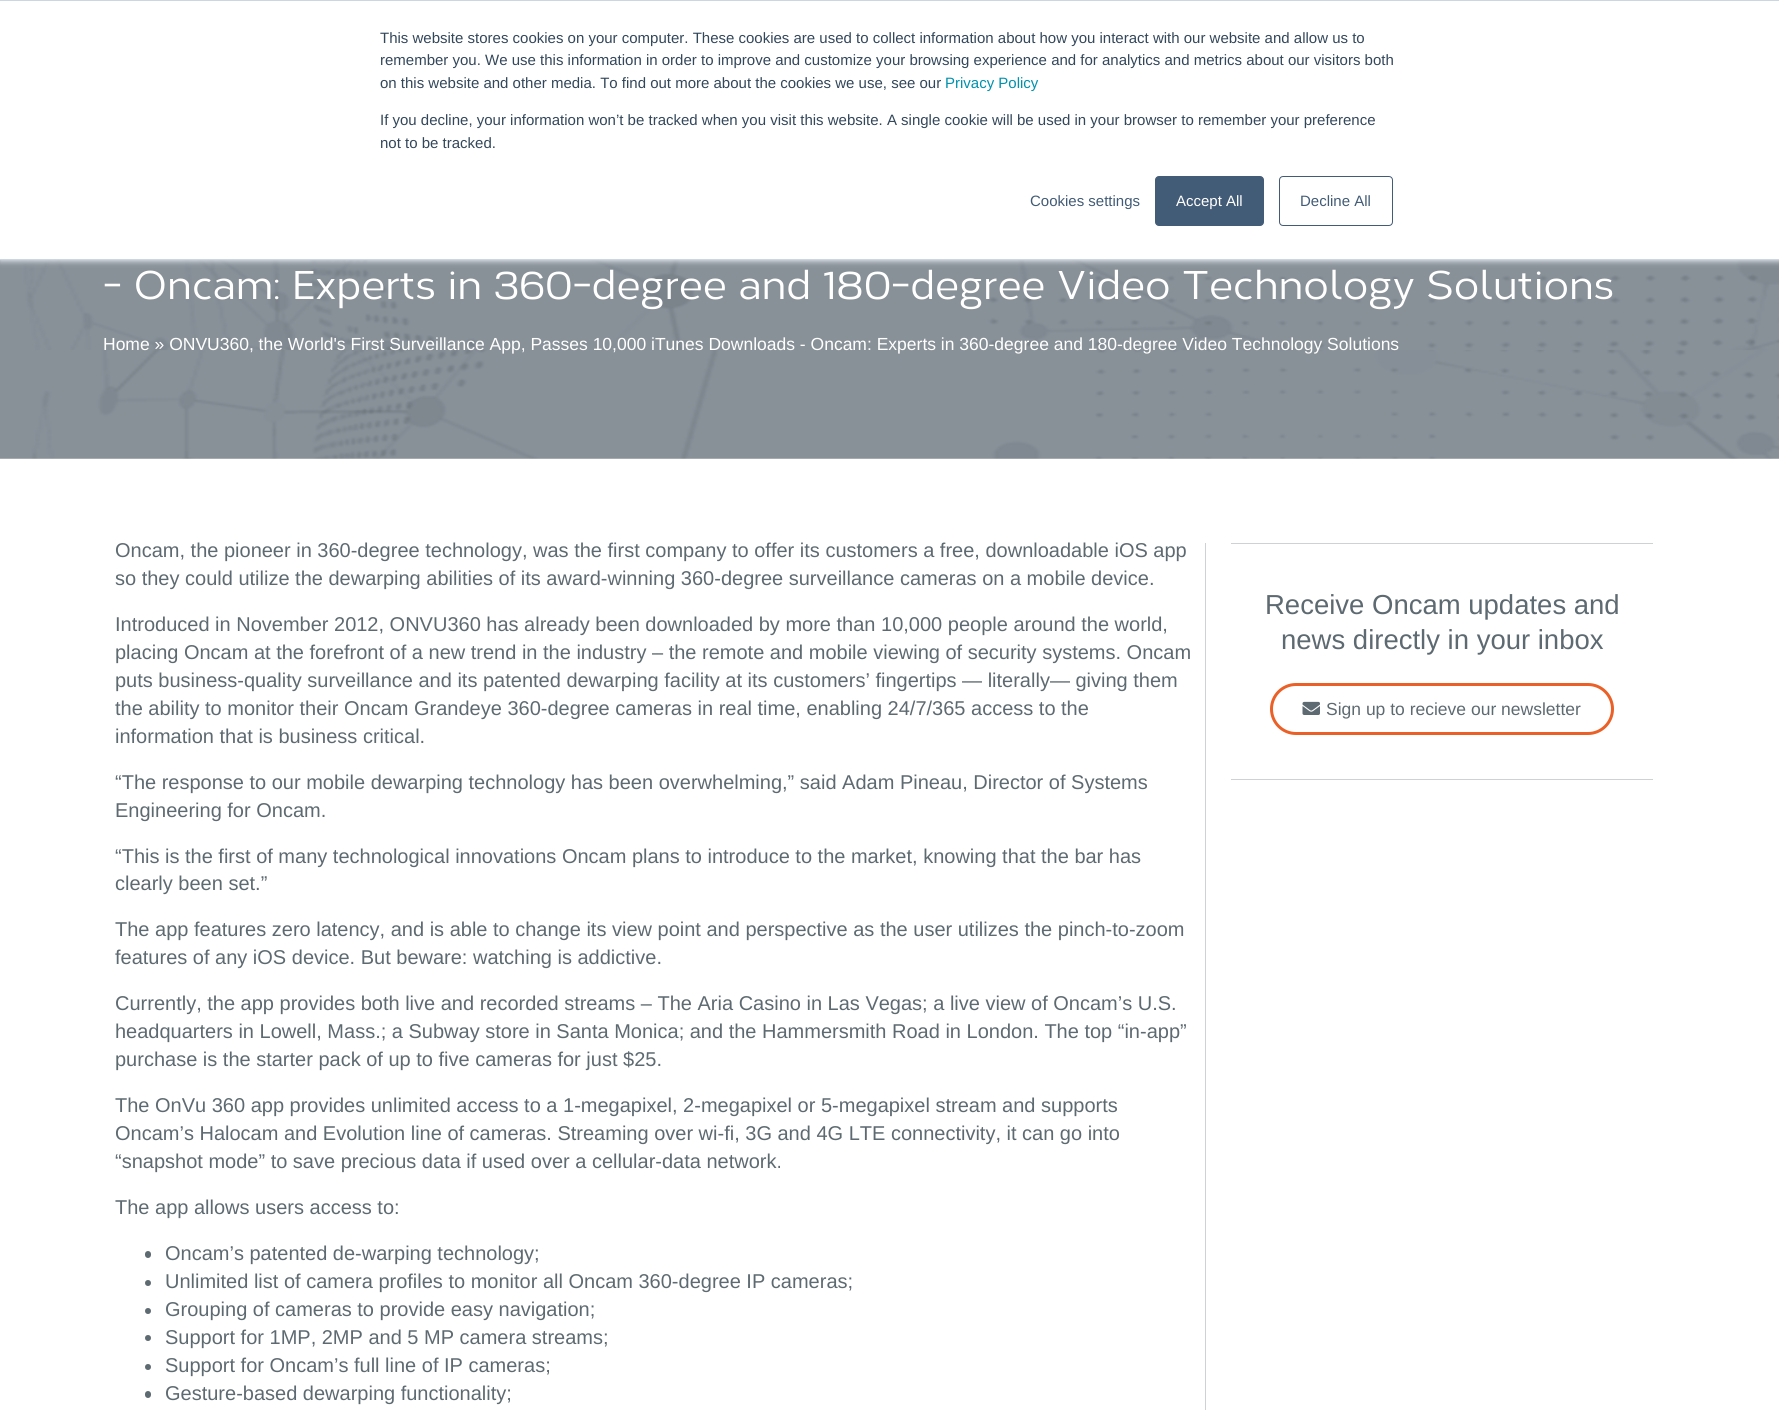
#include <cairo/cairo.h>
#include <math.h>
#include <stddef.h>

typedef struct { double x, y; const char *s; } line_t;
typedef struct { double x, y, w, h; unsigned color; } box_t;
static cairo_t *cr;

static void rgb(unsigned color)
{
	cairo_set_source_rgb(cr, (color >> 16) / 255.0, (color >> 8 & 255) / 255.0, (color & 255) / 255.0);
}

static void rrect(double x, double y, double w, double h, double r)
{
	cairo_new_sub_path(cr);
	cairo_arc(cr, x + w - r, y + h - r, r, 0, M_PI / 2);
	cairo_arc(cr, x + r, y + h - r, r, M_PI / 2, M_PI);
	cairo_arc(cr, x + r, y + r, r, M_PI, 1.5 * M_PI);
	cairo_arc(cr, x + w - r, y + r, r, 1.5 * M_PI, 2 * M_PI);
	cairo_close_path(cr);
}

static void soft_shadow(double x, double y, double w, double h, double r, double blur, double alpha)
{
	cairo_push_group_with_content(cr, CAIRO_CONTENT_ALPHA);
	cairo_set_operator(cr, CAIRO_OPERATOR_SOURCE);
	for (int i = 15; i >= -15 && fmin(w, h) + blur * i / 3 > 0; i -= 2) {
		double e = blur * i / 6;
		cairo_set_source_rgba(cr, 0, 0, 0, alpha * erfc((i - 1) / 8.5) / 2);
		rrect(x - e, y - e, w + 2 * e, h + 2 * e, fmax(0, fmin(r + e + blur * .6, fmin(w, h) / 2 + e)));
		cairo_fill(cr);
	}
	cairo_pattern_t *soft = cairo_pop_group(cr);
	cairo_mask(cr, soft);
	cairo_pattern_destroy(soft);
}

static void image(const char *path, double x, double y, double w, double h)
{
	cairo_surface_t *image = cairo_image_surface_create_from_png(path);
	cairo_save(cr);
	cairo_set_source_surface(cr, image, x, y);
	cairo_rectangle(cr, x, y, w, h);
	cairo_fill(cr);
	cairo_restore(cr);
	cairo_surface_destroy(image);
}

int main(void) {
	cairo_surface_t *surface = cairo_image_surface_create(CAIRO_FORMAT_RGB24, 1779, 1410);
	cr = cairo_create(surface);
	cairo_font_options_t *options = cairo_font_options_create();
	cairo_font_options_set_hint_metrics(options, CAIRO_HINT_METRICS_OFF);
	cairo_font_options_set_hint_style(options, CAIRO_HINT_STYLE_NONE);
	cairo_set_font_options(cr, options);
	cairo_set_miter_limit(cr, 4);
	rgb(0xffffff);
	cairo_paint(cr);
	image("img/1.png", 0, 260, 1779, 199);
	rgb(0xeaf0f6);
	soft_shadow(0, 1, 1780, 260, 0, 3, 1);
	{
		static const box_t items[] = {
			{0, 1, 1779, 258, 0xffffff},
			{0, 0, 1779, 1, 0xcbd6e2},
			{0, 259, 1779, 1, 0xcbd6e2},
		};
		for (size_t i = 0; i < sizeof items / sizeof *items; i++) {
			rgb(items[i].color);
			cairo_rectangle(cr, items[i].x, items[i].y, items[i].w, items[i].h);
			cairo_fill(cr);
		}
	}
	rgb(0x425b76);
	rrect(1155.5, 176.5, 108, 49, 3.5);
	cairo_fill_preserve(cr);
	cairo_set_line_width(cr, 1);
	cairo_stroke(cr);
	rrect(1279.5, 176.5, 113, 49, 3.5);
	cairo_stroke(cr);
	rgb(0x5e6a71);
	rrect(145, 1251, 6, 7, 3);
	cairo_fill(cr);
	cairo_arc(cr, 148, 1283, 3, 0, 2 * M_PI);
	cairo_fill(cr);
	cairo_arc(cr, 148, 1311, 3, 0, 2 * M_PI);
	cairo_fill(cr);
	cairo_arc(cr, 148, 1338, 3, 0, 2 * M_PI);
	cairo_fill(cr);
	cairo_arc(cr, 148, 1367, 3, 0, 2 * M_PI);
	cairo_fill(cr);
	rrect(145, 1391, 6, 7, 3);
	cairo_fill(cr);
	rgb(0xcfd2d4);
	cairo_rectangle(cr, 1205, 543, 1, 867);
	cairo_fill(cr);
	cairo_rectangle(cr, 1231, 543, 422, 1);
	cairo_fill(cr);
	rrect(1271.5, 684.5, 341, 49, 24.5);
	rgb(0xea6027);
	cairo_set_line_width(cr, 3);
	cairo_stroke(cr);
	image("img/2.png", 1302, 701, 18, 14);
	rgb(0xcfd2d4);
	cairo_rectangle(cr, 1231, 779, 422, 1);
	cairo_fill(cr);
	cairo_select_font_face(cr, "Liberation Sans", CAIRO_FONT_SLANT_NORMAL, CAIRO_FONT_WEIGHT_NORMAL);
	cairo_set_font_size(cr, 15);
	rgb(0x33475b);
	{
		static const line_t items[] = {
			{380, 43, "This website stores cookies on your computer. These cookies are used to collect information about how you interact with our website and allow us to"},
			{380, 65, "remember you. We use this information in order to improve and customize your browsing experience and for analytics and metrics about our visitors both"},
			{380, 88, "on this website and other media. To find out more about the cookies we use, see our"},
		};
		for (size_t i = 0; i < sizeof items / sizeof *items; i++) {
			cairo_move_to(cr, items[i].x, items[i].y);
			cairo_show_text(cr, items[i].s);
		}
	}
	rgb(0x0091ae);
	cairo_move_to(cr, 945, 88);
	cairo_show_text(cr, "Privacy Policy");
	rgb(0x33475b);
	cairo_move_to(cr, 380, 125);
	cairo_show_text(cr, "If you decline, your information won’t be tracked when you visit this website. A single cookie will be used in your browser to remember your preference");
	cairo_move_to(cr, 380, 148);
	cairo_show_text(cr, "not to be tracked.");
	rgb(0x425b76);
	cairo_move_to(cr, 1030, 206);
	cairo_show_text(cr, "Cookies settings");
	rgb(0xffffff);
	cairo_move_to(cr, 1176, 206);
	cairo_show_text(cr, "Accept All");
	rgb(0x425b76);
	cairo_move_to(cr, 1300, 206);
	cairo_show_text(cr, "Decline All");
	cairo_select_font_face(cr, "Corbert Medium", CAIRO_FONT_SLANT_NORMAL, CAIRO_FONT_WEIGHT_NORMAL);
	cairo_set_font_size(cr, 40);
	rgb(0xffffff);
	cairo_move_to(cr, 103, 299);
	cairo_show_text(cr, "- Oncam: Experts in 360-degree and 180-degree Video Technology Solutions");
	cairo_select_font_face(cr, "Liberation Sans", CAIRO_FONT_SLANT_NORMAL, CAIRO_FONT_WEIGHT_NORMAL);
	cairo_set_font_size(cr, 17.5);
	cairo_move_to(cr, 103, 350);
	cairo_show_text(cr, "Home » ONVU360, the World's First Surveillance App, Passes 10,000 iTunes Downloads - Oncam: Experts in 360-degree and 180-degree Video Technology Solutions");
	cairo_set_font_size(cr, 20);
	rgb(0x5e6a71);
	{
		static const line_t items[] = {
			{115, 557, "Oncam, the pioneer in 360-degree technology, was the first company to offer its customers a free, downloadable iOS app"},
			{115, 585, "so they could utilize the dewarping abilities of its award-winning 360-degree surveillance cameras on a mobile device."},
			{115, 631, "Introduced in November 2012, ONVU360 has already been downloaded by more than 10,000 people around the world,"},
			{115, 659, "placing Oncam at the forefront of a new trend in the industry – the remote and mobile viewing of security systems. Oncam"},
			{115, 687, "puts business-quality surveillance and its patented dewarping facility at its customers’ fingertips — literally— giving them"},
			{115, 715, "the ability to monitor their Oncam Grandeye 360-degree cameras in real time, enabling 24/7/365 access to the"},
			{115, 743, "information that is business critical."},
			{115, 789, "“The response to our mobile dewarping technology has been overwhelming,” said Adam Pineau, Director of Systems"},
			{115, 817, "Engineering for Oncam."},
			{115, 863, "“This is the first of many technological innovations Oncam plans to introduce to the market, knowing that the bar has"},
			{115, 890, "clearly been set.”"},
			{115, 936, "The app features zero latency, and is able to change its view point and perspective as the user utilizes the pinch-to-zoom"},
			{115, 964, "features of any iOS device. But beware: watching is addictive."},
			{115, 1010, "Currently, the app provides both live and recorded streams – The Aria Casino in Las Vegas; a live view of Oncam’s U.S."},
			{115, 1038, "headquarters in Lowell, Mass.; a Subway store in Santa Monica; and the Hammersmith Road in London. The top “in-app”"},
			{115, 1066, "purchase is the starter pack of up to five cameras for just $25."},
			{115, 1112, "The OnVu 360 app provides unlimited access to a 1-megapixel, 2-megapixel or 5-megapixel stream and supports"},
			{115, 1140, "Oncam’s Halocam and Evolution line of cameras. Streaming over wi-fi, 3G and 4G LTE connectivity, it can go into"},
			{115, 1168, "“snapshot mode” to save precious data if used over a cellular-data network."},
			{115, 1214, "The app allows users access to:"},
			{165, 1260, "Oncam’s patented de-warping technology;"},
			{165, 1288, "Unlimited list of camera profiles to monitor all Oncam 360-degree IP cameras;"},
			{165, 1316, "Grouping of cameras to provide easy navigation;"},
			{165, 1344, "Support for 1MP, 2MP and 5 MP camera streams;"},
			{165, 1372, "Support for Oncam’s full line of IP cameras;"},
			{165, 1400, "Gesture-based dewarping functionality;"},
		};
		for (size_t i = 0; i < sizeof items / sizeof *items; i++) {
			cairo_move_to(cr, items[i].x, items[i].y);
			cairo_show_text(cr, items[i].s);
		}
	}
	cairo_set_font_size(cr, 27.5);
	cairo_move_to(cr, 1265, 614);
	cairo_show_text(cr, "Receive Oncam updates and");
	cairo_move_to(cr, 1281, 649);
	cairo_show_text(cr, "news directly in your inbox");
	cairo_set_font_size(cr, 17.5);
	cairo_move_to(cr, 1326, 715);
	cairo_show_text(cr, "Sign up to recieve our newsletter");
	cairo_surface_write_to_png(surface, "page.png");
	cairo_font_options_destroy(options);
	cairo_destroy(cr);
	cairo_surface_destroy(surface);
	return 0;
}
